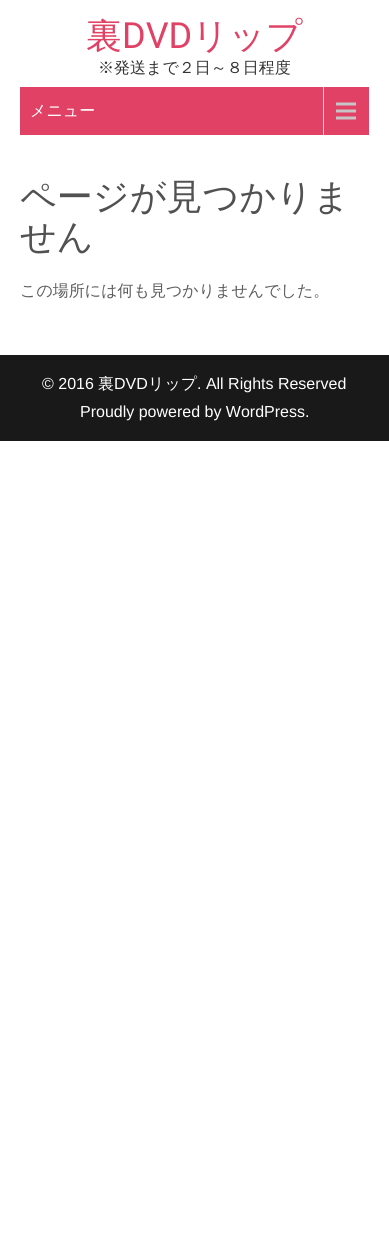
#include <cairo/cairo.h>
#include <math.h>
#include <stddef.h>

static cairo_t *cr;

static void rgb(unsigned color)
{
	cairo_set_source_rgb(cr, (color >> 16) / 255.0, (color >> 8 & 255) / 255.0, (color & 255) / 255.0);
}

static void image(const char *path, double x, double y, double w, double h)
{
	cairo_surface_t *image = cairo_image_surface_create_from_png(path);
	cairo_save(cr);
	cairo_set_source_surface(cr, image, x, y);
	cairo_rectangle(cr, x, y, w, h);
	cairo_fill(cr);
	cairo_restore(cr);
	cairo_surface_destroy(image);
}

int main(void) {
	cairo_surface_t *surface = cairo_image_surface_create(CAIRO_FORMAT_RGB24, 389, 1252);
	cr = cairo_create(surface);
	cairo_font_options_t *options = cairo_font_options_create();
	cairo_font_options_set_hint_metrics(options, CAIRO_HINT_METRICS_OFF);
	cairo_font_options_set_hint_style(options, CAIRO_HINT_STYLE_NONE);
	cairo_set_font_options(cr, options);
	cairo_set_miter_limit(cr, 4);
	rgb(0xffffff);
	cairo_paint(cr);
	rgb(0xe14165);
	cairo_rectangle(cr, 20, 87, 349, 48);
	cairo_fill(cr);
	image("img/1.png", 323, 87, 33, 48);
	rgb(0x1a191a);
	cairo_rectangle(cr, 0, 355, 389, 86);
	cairo_fill(cr);
	cairo_select_font_face(cr, "WenQuanYi Zen Hei Medium", CAIRO_FONT_SLANT_NORMAL, CAIRO_FONT_WEIGHT_NORMAL);
	cairo_set_font_size(cr, 36);
	rgb(0xe14165);
	cairo_move_to(cr, 86, 48);
	cairo_show_text(cr, "裏");
	cairo_select_font_face(cr, "Roboto", CAIRO_FONT_SLANT_NORMAL, CAIRO_FONT_WEIGHT_NORMAL);
	cairo_move_to(cr, 122, 48);
	cairo_show_text(cr, "DVD");
	cairo_select_font_face(cr, "WenQuanYi Zen Hei Medium", CAIRO_FONT_SLANT_NORMAL, CAIRO_FONT_WEIGHT_NORMAL);
	cairo_move_to(cr, 192, 48);
	cairo_show_text(cr, "リップ");
	cairo_set_font_size(cr, 16);
	rgb(0x333333);
	cairo_move_to(cr, 98, 73);
	cairo_show_text(cr, "※発送まで２日～８日程度");
	rgb(0xffffff);
	cairo_move_to(cr, 30, 116);
	cairo_show_text(cr, "メニュー");
	cairo_set_font_size(cr, 36);
	rgb(0x515151);
	cairo_move_to(cr, 20, 209);
	cairo_show_text(cr, "ページが見つかりま");
	cairo_move_to(cr, 20, 249);
	cairo_show_text(cr, "せん");
	cairo_set_font_size(cr, 16);
	rgb(0x5c5c5c);
	cairo_move_to(cr, 20, 296);
	cairo_show_text(cr, "この場所には何も見つかりませんでした。");
	cairo_select_font_face(cr, "Liberation Sans", CAIRO_FONT_SLANT_NORMAL, CAIRO_FONT_WEIGHT_NORMAL);
	rgb(0xffffff);
	cairo_move_to(cr, 42, 389);
	cairo_show_text(cr, "© 2016");
	cairo_select_font_face(cr, "WenQuanYi Zen Hei Medium", CAIRO_FONT_SLANT_NORMAL, CAIRO_FONT_WEIGHT_NORMAL);
	cairo_move_to(cr, 98, 389);
	cairo_show_text(cr, "裏");
	cairo_select_font_face(cr, "Liberation Sans", CAIRO_FONT_SLANT_NORMAL, CAIRO_FONT_WEIGHT_NORMAL);
	cairo_move_to(cr, 114, 389);
	cairo_show_text(cr, "DVD");
	cairo_select_font_face(cr, "WenQuanYi Zen Hei Medium", CAIRO_FONT_SLANT_NORMAL, CAIRO_FONT_WEIGHT_NORMAL);
	cairo_move_to(cr, 148, 389);
	cairo_show_text(cr, "リップ");
	cairo_select_font_face(cr, "Liberation Sans", CAIRO_FONT_SLANT_NORMAL, CAIRO_FONT_WEIGHT_NORMAL);
	cairo_move_to(cr, 197, 389);
	cairo_show_text(cr, ". All Rights Reserved");
	cairo_move_to(cr, 80, 417);
	cairo_show_text(cr, "Proudly powered by WordPress.");
	cairo_surface_write_to_png(surface, "page.png");
	cairo_font_options_destroy(options);
	cairo_destroy(cr);
	cairo_surface_destroy(surface);
	return 0;
}
